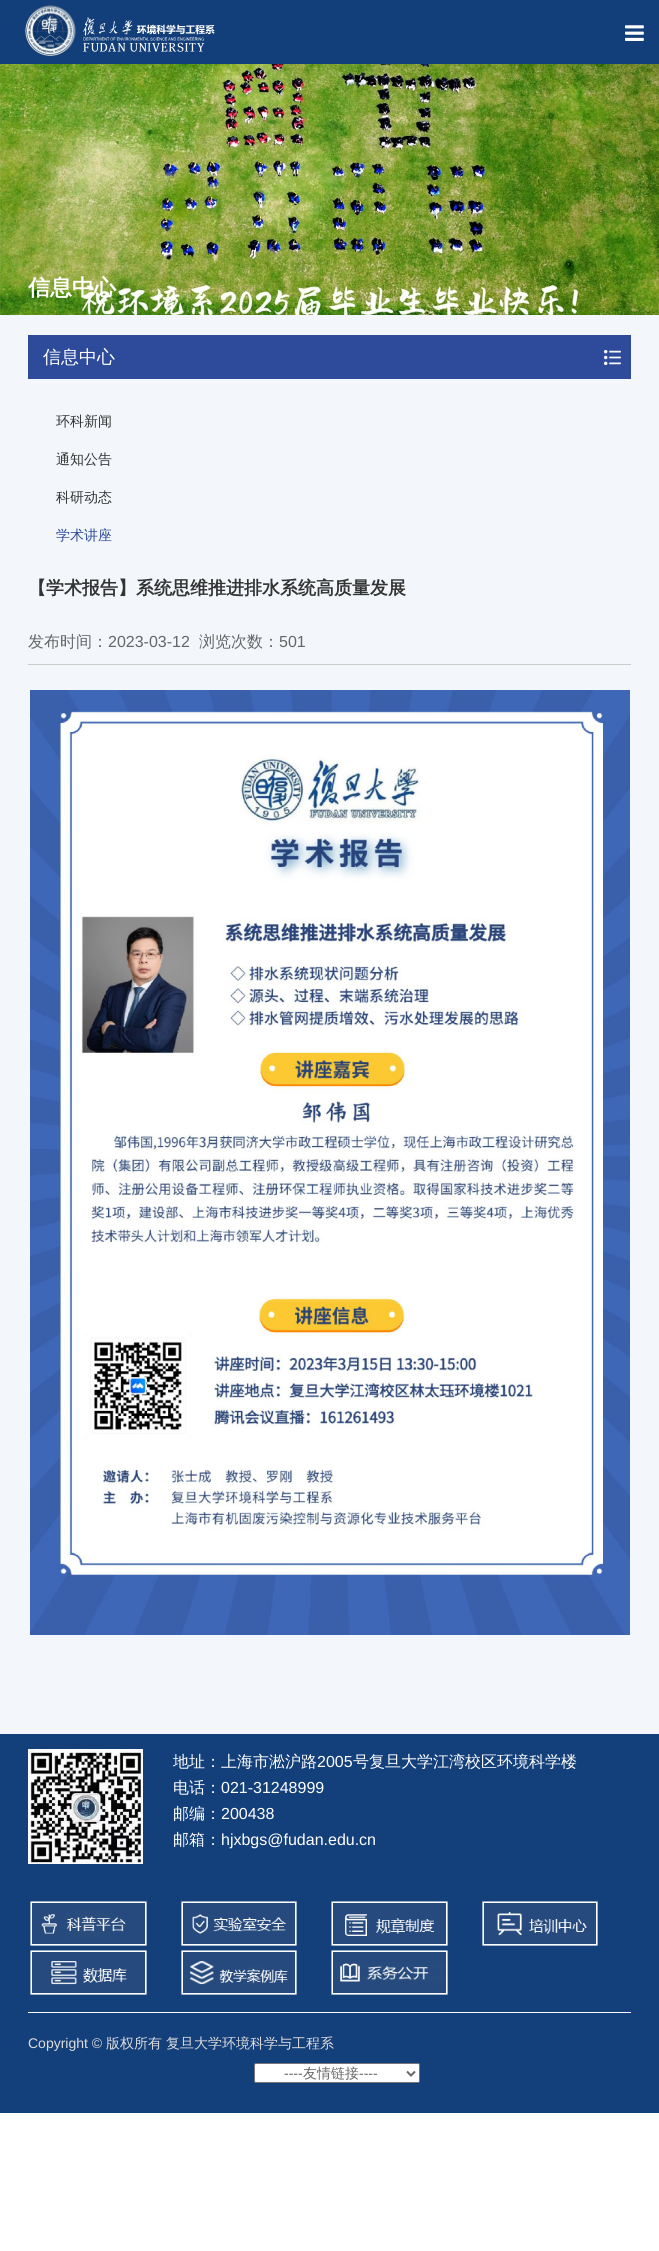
#include <cairo/cairo.h>
#include <math.h>
#include <stddef.h>

typedef struct { double x, y; const char *s; } line_t;
static cairo_t *cr;

static void rgb(unsigned color)
{
	cairo_set_source_rgb(cr, (color >> 16) / 255.0, (color >> 8 & 255) / 255.0, (color & 255) / 255.0);
}

static void rrect(double x, double y, double w, double h, double r)
{
	cairo_new_sub_path(cr);
	cairo_arc(cr, x + w - r, y + h - r, r, 0, M_PI / 2);
	cairo_arc(cr, x + r, y + h - r, r, M_PI / 2, M_PI);
	cairo_arc(cr, x + r, y + r, r, M_PI, 1.5 * M_PI);
	cairo_arc(cr, x + w - r, y + r, r, 1.5 * M_PI, 2 * M_PI);
	cairo_close_path(cr);
}

static void image(const char *path, double x, double y, double w, double h)
{
	cairo_surface_t *image = cairo_image_surface_create_from_png(path);
	cairo_save(cr);
	cairo_set_source_surface(cr, image, x, y);
	cairo_rectangle(cr, x, y, w, h);
	cairo_fill(cr);
	cairo_restore(cr);
	cairo_surface_destroy(image);
}

int main(void) {
	cairo_surface_t *surface = cairo_image_surface_create(CAIRO_FORMAT_RGB24, 659, 2251);
	cr = cairo_create(surface);
	cairo_font_options_t *options = cairo_font_options_create();
	cairo_font_options_set_hint_metrics(options, CAIRO_HINT_METRICS_OFF);
	cairo_font_options_set_hint_style(options, CAIRO_HINT_STYLE_NONE);
	cairo_set_font_options(cr, options);
	cairo_set_miter_limit(cr, 4);
	rgb(0xffffff);
	cairo_paint(cr);
	rgb(0x123e7a);
	cairo_rectangle(cr, 0, 0, 659, 64);
	cairo_fill(cr);
	image("img/1.png", 24, 5, 191, 51);
	image("img/2.png", 625, 25, 19, 16);
	rgb(0xf3f7fc);
	cairo_rectangle(cr, 0, 315, 659, 1419);
	cairo_fill(cr);
	image("img/3.png", 0, 64, 659, 251);
	rgb(0x2d4b9a);
	cairo_rectangle(cr, 28, 335, 603, 44);
	cairo_fill(cr);
	image("img/4.png", 604, 350, 17, 15);
	rgb(0xcccccc);
	cairo_rectangle(cr, 28, 664, 603, 1);
	cairo_fill(cr);
	image("img/5.png", 30, 690, 600, 945);
	rgb(0x133f7b);
	cairo_rectangle(cr, 0, 1734, 659, 379);
	cairo_fill(cr);
	image("img/6.png", 28, 1749, 115, 115);
	image("img/7.png", 30, 1901, 117, 45);
	image("img/8.png", 181, 1901, 116, 45);
	image("img/9.png", 331, 1901, 117, 45);
	image("img/10.png", 482, 1901, 116, 45);
	image("img/11.png", 30, 1950, 117, 45);
	image("img/12.png", 181, 1950, 116, 45);
	image("img/13.png", 331, 1950, 117, 45);
	rgb(0xffffff);
	cairo_rectangle(cr, 28, 2012, 603, 1);
	cairo_fill(cr);
	rrect(254.5, 2063.5, 165, 19, 1.5);
	cairo_fill_preserve(cr);
	rgb(0x767676);
	cairo_set_line_width(cr, 1);
	cairo_stroke(cr);
	cairo_new_path(cr);
	cairo_move_to(cr, 407, 2071.5);
	cairo_line_to(cr, 411, 2075.5);
	cairo_line_to(cr, 415, 2071.5);
	rgb(0x666666);
	cairo_set_line_width(cr, 2);
	cairo_stroke(cr);
	cairo_select_font_face(cr, "WenQuanYi Zen Hei", CAIRO_FONT_SLANT_NORMAL, CAIRO_FONT_WEIGHT_BOLD);
	cairo_set_font_size(cr, 22);
	rgb(0xffffff);
	cairo_move_to(cr, 28, 295);
	cairo_show_text(cr, "信息中心");
	cairo_select_font_face(cr, "WenQuanYi Zen Hei Medium", CAIRO_FONT_SLANT_NORMAL, CAIRO_FONT_WEIGHT_NORMAL);
	cairo_set_font_size(cr, 18);
	cairo_move_to(cr, 43, 363);
	cairo_show_text(cr, "信息中心");
	cairo_set_font_size(cr, 14);
	rgb(0x333333);
	{
		static const line_t items[] = {
			{56, 426, "环科新闻"},
			{56, 464, "通知公告"},
			{56, 502, "科研动态"},
		};
		for (size_t i = 0; i < sizeof items / sizeof *items; i++) {
			cairo_move_to(cr, items[i].x, items[i].y);
			cairo_show_text(cr, items[i].s);
		}
	}
	rgb(0x2d4b9a);
	cairo_move_to(cr, 56, 540);
	cairo_show_text(cr, "学术讲座");
	cairo_select_font_face(cr, "WenQuanYi Zen Hei", CAIRO_FONT_SLANT_NORMAL, CAIRO_FONT_WEIGHT_BOLD);
	cairo_set_font_size(cr, 18);
	rgb(0x333333);
	cairo_move_to(cr, 28, 594);
	cairo_show_text(cr, "【学术报告】系统思维推进排水系统高质量发展");
	cairo_select_font_face(cr, "WenQuanYi Zen Hei Medium", CAIRO_FONT_SLANT_NORMAL, CAIRO_FONT_WEIGHT_NORMAL);
	cairo_set_font_size(cr, 16);
	rgb(0x666666);
	cairo_move_to(cr, 28, 647);
	cairo_show_text(cr, "发布时间：");
	cairo_select_font_face(cr, "Liberation Sans", CAIRO_FONT_SLANT_NORMAL, CAIRO_FONT_WEIGHT_NORMAL);
	cairo_move_to(cr, 108, 647);
	cairo_show_text(cr, "2023-03-12");
	cairo_select_font_face(cr, "WenQuanYi Zen Hei Medium", CAIRO_FONT_SLANT_NORMAL, CAIRO_FONT_WEIGHT_NORMAL);
	cairo_move_to(cr, 199, 647);
	cairo_show_text(cr, "浏览次数：");
	cairo_select_font_face(cr, "Liberation Sans", CAIRO_FONT_SLANT_NORMAL, CAIRO_FONT_WEIGHT_NORMAL);
	cairo_move_to(cr, 279, 647);
	cairo_show_text(cr, "501");
	cairo_select_font_face(cr, "WenQuanYi Zen Hei Medium", CAIRO_FONT_SLANT_NORMAL, CAIRO_FONT_WEIGHT_NORMAL);
	rgb(0xffffff);
	cairo_move_to(cr, 173, 1767);
	cairo_show_text(cr, "地址：上海市淞沪路");
	cairo_select_font_face(cr, "Liberation Sans", CAIRO_FONT_SLANT_NORMAL, CAIRO_FONT_WEIGHT_NORMAL);
	cairo_move_to(cr, 317, 1767);
	cairo_show_text(cr, "2005");
	cairo_select_font_face(cr, "WenQuanYi Zen Hei Medium", CAIRO_FONT_SLANT_NORMAL, CAIRO_FONT_WEIGHT_NORMAL);
	cairo_move_to(cr, 353, 1767);
	cairo_show_text(cr, "号复旦大学江湾校区环境科学楼");
	cairo_move_to(cr, 173, 1793);
	cairo_show_text(cr, "电话：");
	cairo_select_font_face(cr, "Liberation Sans", CAIRO_FONT_SLANT_NORMAL, CAIRO_FONT_WEIGHT_NORMAL);
	cairo_move_to(cr, 221, 1793);
	cairo_show_text(cr, "021-31248999");
	cairo_select_font_face(cr, "WenQuanYi Zen Hei Medium", CAIRO_FONT_SLANT_NORMAL, CAIRO_FONT_WEIGHT_NORMAL);
	cairo_move_to(cr, 173, 1819);
	cairo_show_text(cr, "邮编：");
	cairo_select_font_face(cr, "Liberation Sans", CAIRO_FONT_SLANT_NORMAL, CAIRO_FONT_WEIGHT_NORMAL);
	cairo_move_to(cr, 221, 1819);
	cairo_show_text(cr, "200438");
	cairo_select_font_face(cr, "WenQuanYi Zen Hei Medium", CAIRO_FONT_SLANT_NORMAL, CAIRO_FONT_WEIGHT_NORMAL);
	cairo_move_to(cr, 173, 1845);
	cairo_show_text(cr, "邮箱：");
	cairo_select_font_face(cr, "Liberation Sans", CAIRO_FONT_SLANT_NORMAL, CAIRO_FONT_WEIGHT_NORMAL);
	cairo_move_to(cr, 221, 1845);
	cairo_show_text(cr, "hjxbgs@fudan.edu.cn");
	cairo_set_font_size(cr, 14);
	rgb(0xdddddd);
	cairo_move_to(cr, 28, 2048);
	cairo_show_text(cr, "Copyright ©");
	cairo_select_font_face(cr, "WenQuanYi Zen Hei Medium", CAIRO_FONT_SLANT_NORMAL, CAIRO_FONT_WEIGHT_NORMAL);
	cairo_move_to(cr, 106, 2048);
	cairo_show_text(cr, "版权所有");
	cairo_move_to(cr, 166, 2048);
	cairo_show_text(cr, "复旦大学环境科学与工程系");
	cairo_select_font_face(cr, "Liberation Sans", CAIRO_FONT_SLANT_NORMAL, CAIRO_FONT_WEIGHT_NORMAL);
	rgb(0x666666);
	cairo_move_to(cr, 284, 2078);
	cairo_show_text(cr, "----");
	cairo_select_font_face(cr, "WenQuanYi Zen Hei Medium", CAIRO_FONT_SLANT_NORMAL, CAIRO_FONT_WEIGHT_NORMAL);
	cairo_move_to(cr, 303, 2078);
	cairo_show_text(cr, "友情链接");
	cairo_select_font_face(cr, "Liberation Sans", CAIRO_FONT_SLANT_NORMAL, CAIRO_FONT_WEIGHT_NORMAL);
	cairo_move_to(cr, 359, 2078);
	cairo_show_text(cr, "----");
	cairo_surface_write_to_png(surface, "page.png");
	cairo_font_options_destroy(options);
	cairo_destroy(cr);
	cairo_surface_destroy(surface);
	return 0;
}
